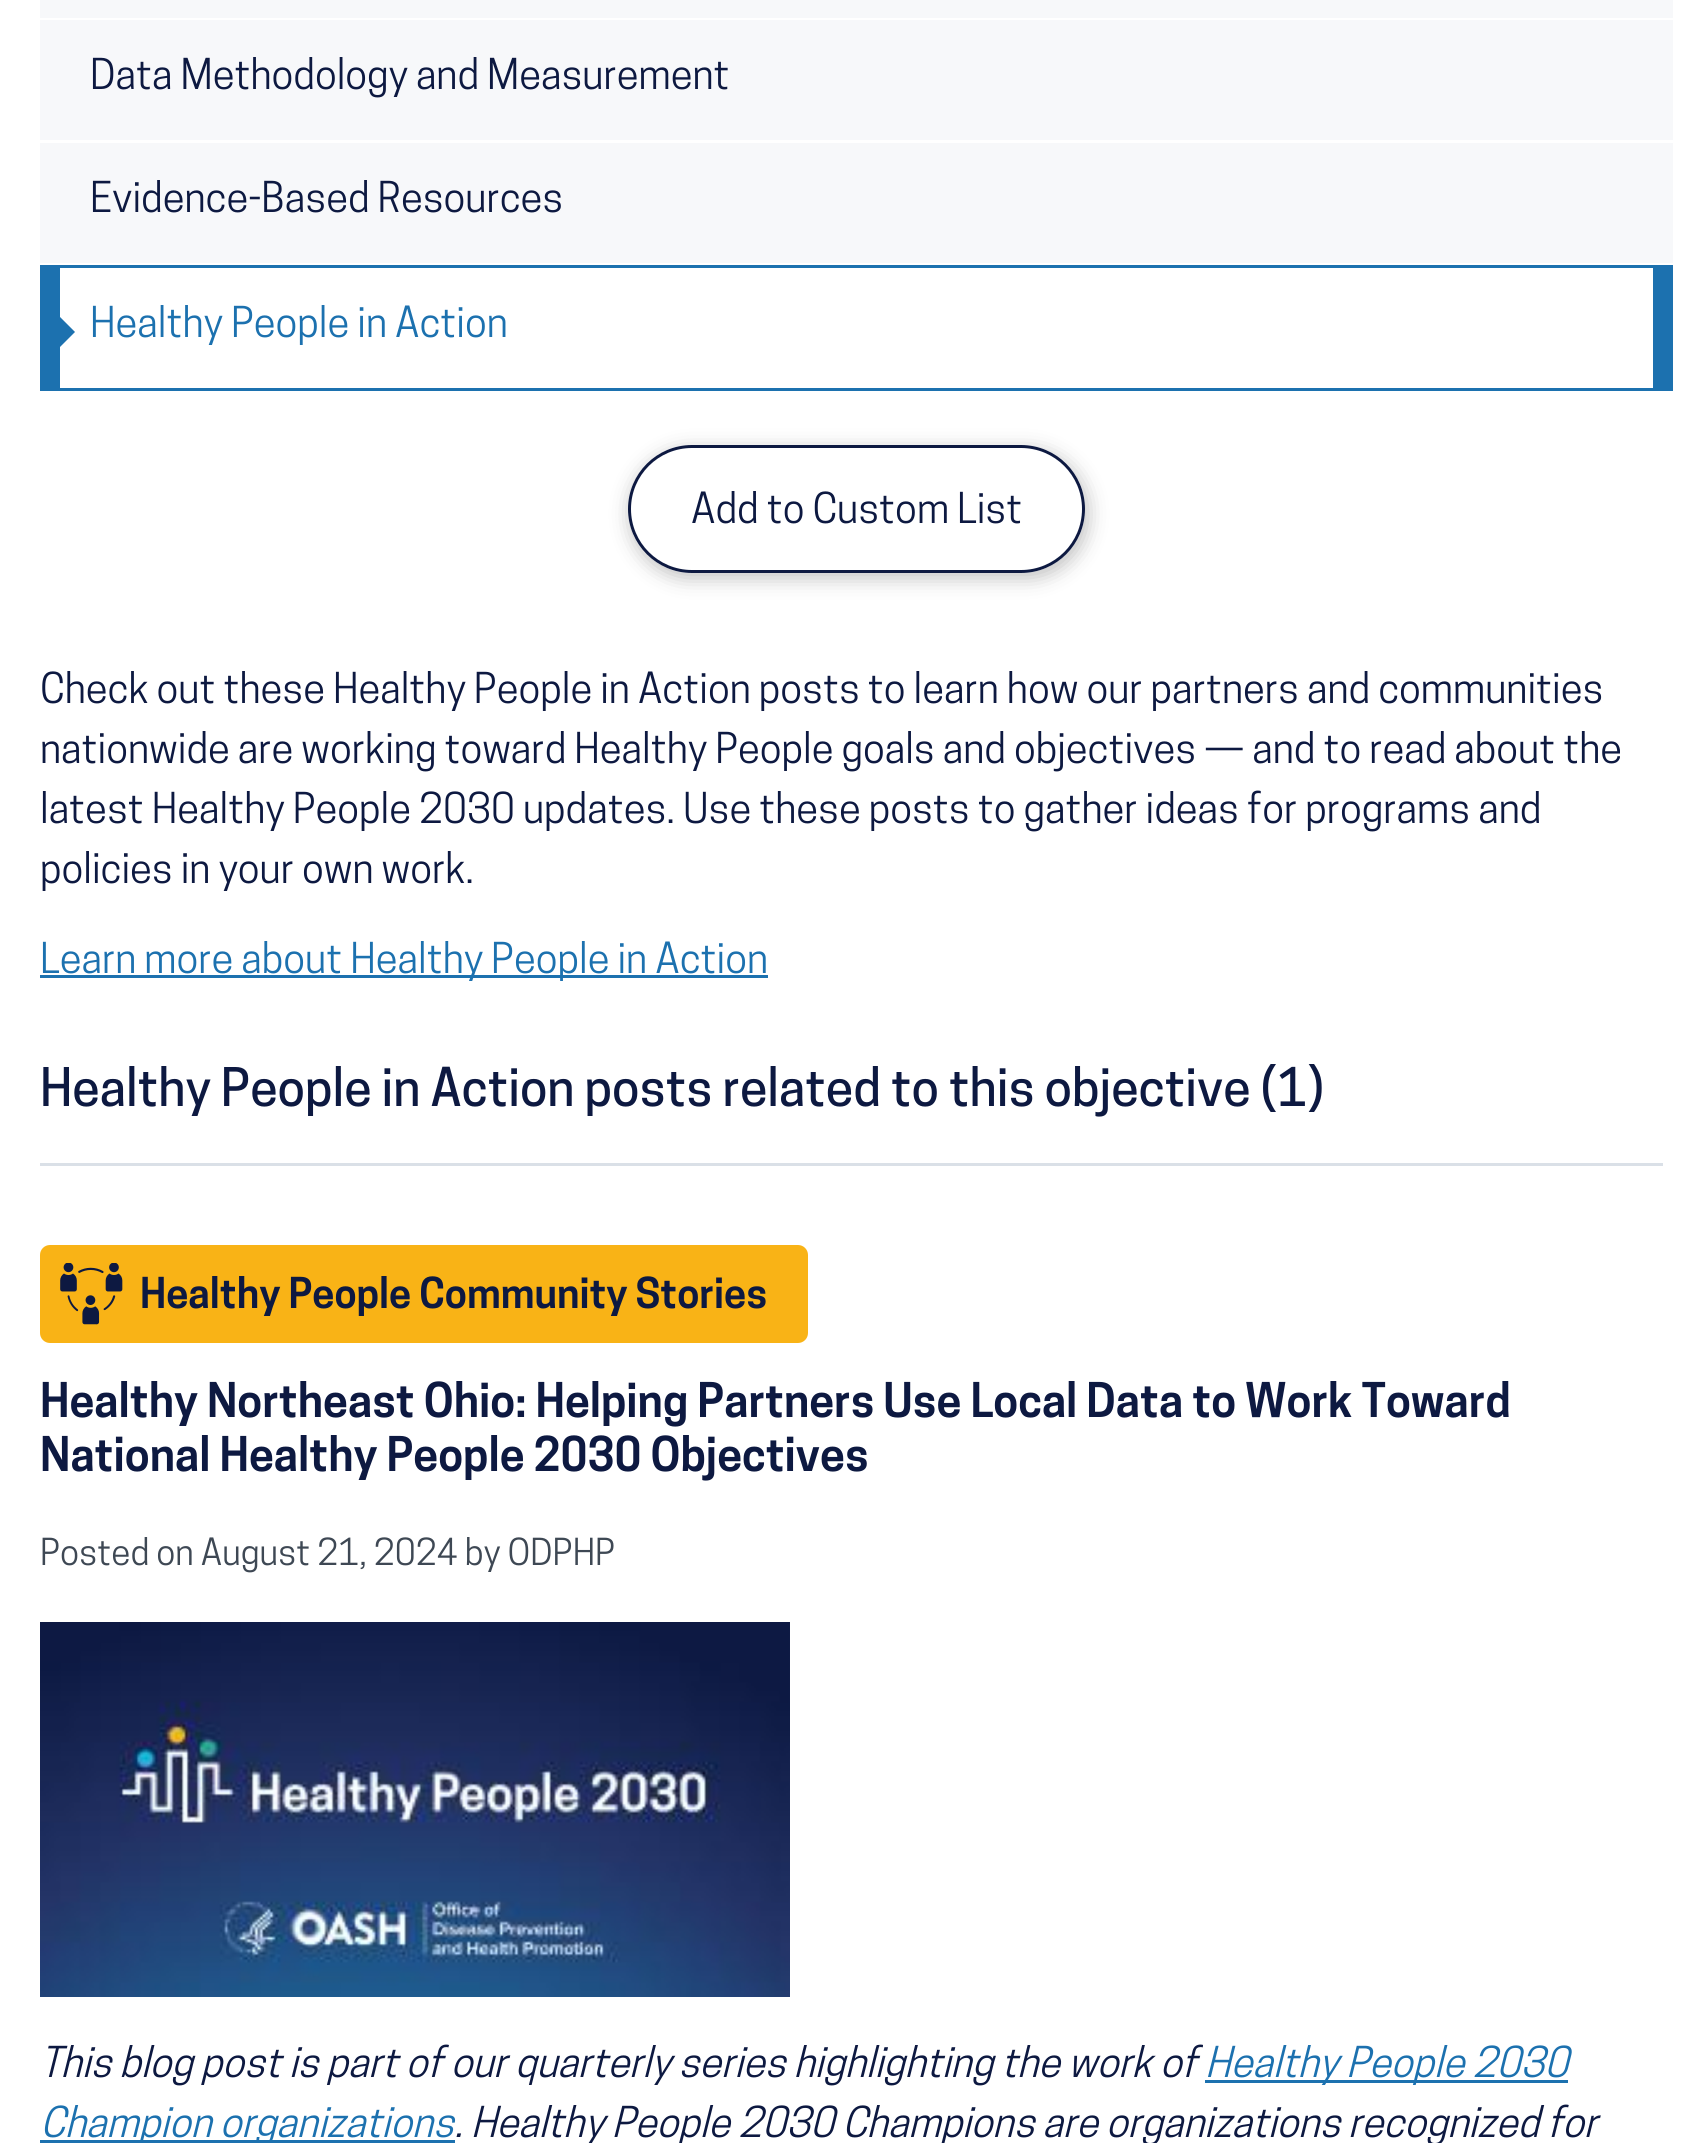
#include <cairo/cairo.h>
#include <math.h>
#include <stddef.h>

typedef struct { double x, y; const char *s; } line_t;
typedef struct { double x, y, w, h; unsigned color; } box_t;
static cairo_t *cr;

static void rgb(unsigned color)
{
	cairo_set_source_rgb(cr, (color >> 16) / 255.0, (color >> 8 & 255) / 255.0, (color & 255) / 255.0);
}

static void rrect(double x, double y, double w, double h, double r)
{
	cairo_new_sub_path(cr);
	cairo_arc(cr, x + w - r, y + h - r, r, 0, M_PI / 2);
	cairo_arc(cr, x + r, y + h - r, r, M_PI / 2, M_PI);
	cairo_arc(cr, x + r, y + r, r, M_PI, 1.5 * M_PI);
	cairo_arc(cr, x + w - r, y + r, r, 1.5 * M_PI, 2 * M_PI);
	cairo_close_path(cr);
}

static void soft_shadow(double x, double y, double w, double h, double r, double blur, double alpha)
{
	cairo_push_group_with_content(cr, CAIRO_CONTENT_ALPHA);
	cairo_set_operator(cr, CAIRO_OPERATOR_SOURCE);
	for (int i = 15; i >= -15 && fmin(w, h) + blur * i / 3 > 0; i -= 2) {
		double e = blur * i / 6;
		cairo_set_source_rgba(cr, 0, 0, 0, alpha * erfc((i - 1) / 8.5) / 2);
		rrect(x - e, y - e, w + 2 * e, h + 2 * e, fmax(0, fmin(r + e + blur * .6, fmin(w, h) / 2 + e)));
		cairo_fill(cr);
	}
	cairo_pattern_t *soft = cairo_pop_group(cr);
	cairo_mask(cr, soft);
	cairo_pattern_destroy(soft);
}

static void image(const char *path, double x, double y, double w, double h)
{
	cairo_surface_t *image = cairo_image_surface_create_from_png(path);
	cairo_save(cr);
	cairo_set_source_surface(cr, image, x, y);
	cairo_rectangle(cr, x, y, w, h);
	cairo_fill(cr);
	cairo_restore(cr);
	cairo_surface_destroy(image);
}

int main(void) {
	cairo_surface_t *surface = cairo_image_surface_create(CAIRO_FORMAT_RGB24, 1701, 2143);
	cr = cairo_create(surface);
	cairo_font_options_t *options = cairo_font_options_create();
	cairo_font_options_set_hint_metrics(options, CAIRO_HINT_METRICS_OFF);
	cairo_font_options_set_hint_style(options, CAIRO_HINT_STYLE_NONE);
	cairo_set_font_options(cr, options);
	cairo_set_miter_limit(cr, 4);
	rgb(0xffffff);
	cairo_paint(cr);
	{
		static const box_t items[] = {
			{40, 0, 1633, 18, 0xf7f8fa},
			{40, 20, 1633, 120, 0xf7f8fa},
			{40, 143, 1633, 120, 0xf7f8fa},
			{40, 265, 20, 123, 0x1c71af},
		};
		for (size_t i = 0; i < sizeof items / sizeof *items; i++) {
			rgb(items[i].color);
			cairo_rectangle(cr, items[i].x, items[i].y, items[i].w, items[i].h);
			cairo_fill(cr);
		}
	}
	cairo_new_path(cr);
	cairo_move_to(cr, 45, 362);
	cairo_line_to(cr, 45, 302);
	cairo_line_to(cr, 75, 332);
	cairo_close_path(cr);
	cairo_fill(cr);
	{
		static const box_t items[] = {
			{60, 265, 1593, 3, 0x1c71af},
			{1653, 265, 20, 123, 0x1c71af},
			{40, 388, 1633, 3, 0x1c71af},
		};
		for (size_t i = 0; i < sizeof items / sizeof *items; i++) {
			rgb(items[i].color);
			cairo_rectangle(cr, items[i].x, items[i].y, items[i].w, items[i].h);
			cairo_fill(cr);
		}
	}
	cairo_save(cr);
	cairo_set_fill_rule(cr, CAIRO_FILL_RULE_EVEN_ODD);
	cairo_new_path(cr);
	cairo_move_to(cr, 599, 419);
	cairo_line_to(cr, 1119, 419);
	cairo_line_to(cr, 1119, 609);
	cairo_line_to(cr, 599, 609);
	cairo_close_path(cr);
	cairo_move_to(cr, 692, 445);
	cairo_line_to(cr, 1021, 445);
	cairo_curve_to(cr, 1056.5, 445, 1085, 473.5, 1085, 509);
	cairo_curve_to(cr, 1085, 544.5, 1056.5, 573, 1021, 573);
	cairo_line_to(cr, 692, 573);
	cairo_curve_to(cr, 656.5, 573, 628, 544.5, 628, 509);
	cairo_curve_to(cr, 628, 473.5, 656.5, 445, 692, 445);
	cairo_close_path(cr);
	cairo_clip(cr);
	rgb(0x000000);
	soft_shadow(630, 450, 458, 128, 64, 10, 0.25);
	cairo_restore(cr);
	rrect(629.5, 446.5, 454, 125, 62.5);
	rgb(0x0d1941);
	cairo_set_line_width(cr, 3);
	cairo_stroke(cr);
	rgb(0x1c71af);
	cairo_rectangle(cr, 40, 975, 728, 3);
	cairo_fill(cr);
	rgb(0xdae0e7);
	cairo_rectangle(cr, 40, 1163, 1623, 3);
	cairo_fill(cr);
	rgb(0xf9b316);
	rrect(40, 1245, 768, 98, 10);
	cairo_fill(cr);
	image("img/1.png", 60, 1263, 63, 62);
	image("img/2.png", 40, 1622, 750, 375);
	rgb(0x1c71af);
	cairo_rectangle(cr, 1205, 2080, 363, 3);
	cairo_fill(cr);
	cairo_rectangle(cr, 40, 2140, 415, 3);
	cairo_fill(cr);
	cairo_select_font_face(cr, "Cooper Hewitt", CAIRO_FONT_SLANT_NORMAL, CAIRO_FONT_WEIGHT_NORMAL);
	cairo_set_font_size(cr, 40);
	rgb(0x0d1941);
	cairo_move_to(cr, 90, 89);
	cairo_show_text(cr, "Data Methodology and Measurement");
	cairo_move_to(cr, 90, 212);
	cairo_show_text(cr, "Evidence-Based Resources");
	rgb(0x1c71af);
	cairo_move_to(cr, 90, 337);
	cairo_show_text(cr, "Healthy People in Action");
	rgb(0x0d1941);
	{
		static const line_t items[] = {
			{691, 523, "Add to Custom List"},
			{40, 703, "Check out these Healthy People in Action posts to learn how our partners and communities"},
			{40, 763, "nationwide are working toward Healthy People goals and objectives — and to read about the"},
			{40, 823, "latest Healthy People 2030 updates. Use these posts to gather ideas for programs and"},
			{40, 883, "policies in your own work."},
		};
		for (size_t i = 0; i < sizeof items / sizeof *items; i++) {
			cairo_move_to(cr, items[i].x, items[i].y);
			cairo_show_text(cr, items[i].s);
		}
	}
	rgb(0x1c71af);
	cairo_move_to(cr, 40, 973);
	cairo_show_text(cr, "Learn more about Healthy People in Action");
	cairo_select_font_face(cr, "Cooper Hewitt Medium", CAIRO_FONT_SLANT_NORMAL, CAIRO_FONT_WEIGHT_NORMAL);
	cairo_set_font_size(cr, 50);
	rgb(0x0d1941);
	cairo_move_to(cr, 40, 1106);
	cairo_show_text(cr, "Healthy People in Action posts related to this objective (1)");
	cairo_select_font_face(cr, "Cooper Hewitt SemiBold", CAIRO_FONT_SLANT_NORMAL, CAIRO_FONT_WEIGHT_NORMAL);
	cairo_set_font_size(cr, 40);
	cairo_move_to(cr, 140, 1308);
	cairo_show_text(cr, "Healthy People Community Stories");
	cairo_set_font_size(cr, 45);
	cairo_move_to(cr, 40, 1417);
	cairo_show_text(cr, "Healthy Northeast Ohio: Helping Partners Use Local Data to Work Toward");
	cairo_move_to(cr, 40, 1471);
	cairo_show_text(cr, "National Healthy People 2030 Objectives");
	cairo_select_font_face(cr, "Cooper Hewitt", CAIRO_FONT_SLANT_NORMAL, CAIRO_FONT_WEIGHT_NORMAL);
	cairo_set_font_size(cr, 35);
	rgb(0x3e4854);
	cairo_move_to(cr, 40, 1565);
	cairo_show_text(cr, "Posted on August 21, 2024 by ODPHP");
	cairo_select_font_face(cr, "Cooper Hewitt", CAIRO_FONT_SLANT_ITALIC, CAIRO_FONT_WEIGHT_NORMAL);
	cairo_set_font_size(cr, 40);
	rgb(0x0d1941);
	cairo_move_to(cr, 40, 2077);
	cairo_show_text(cr, "This blog post is part of our quarterly series highlighting the work of");
	rgb(0x1c71af);
	cairo_move_to(cr, 1205, 2077);
	cairo_show_text(cr, "Healthy People 2030");
	cairo_move_to(cr, 40, 2137);
	cairo_show_text(cr, "Champion organizations");
	rgb(0x0d1941);
	cairo_move_to(cr, 454, 2137);
	cairo_show_text(cr, ". Healthy People 2030 Champions are organizations recognized for");
	cairo_surface_write_to_png(surface, "page.png");
	cairo_font_options_destroy(options);
	cairo_destroy(cr);
	cairo_surface_destroy(surface);
	return 0;
}
